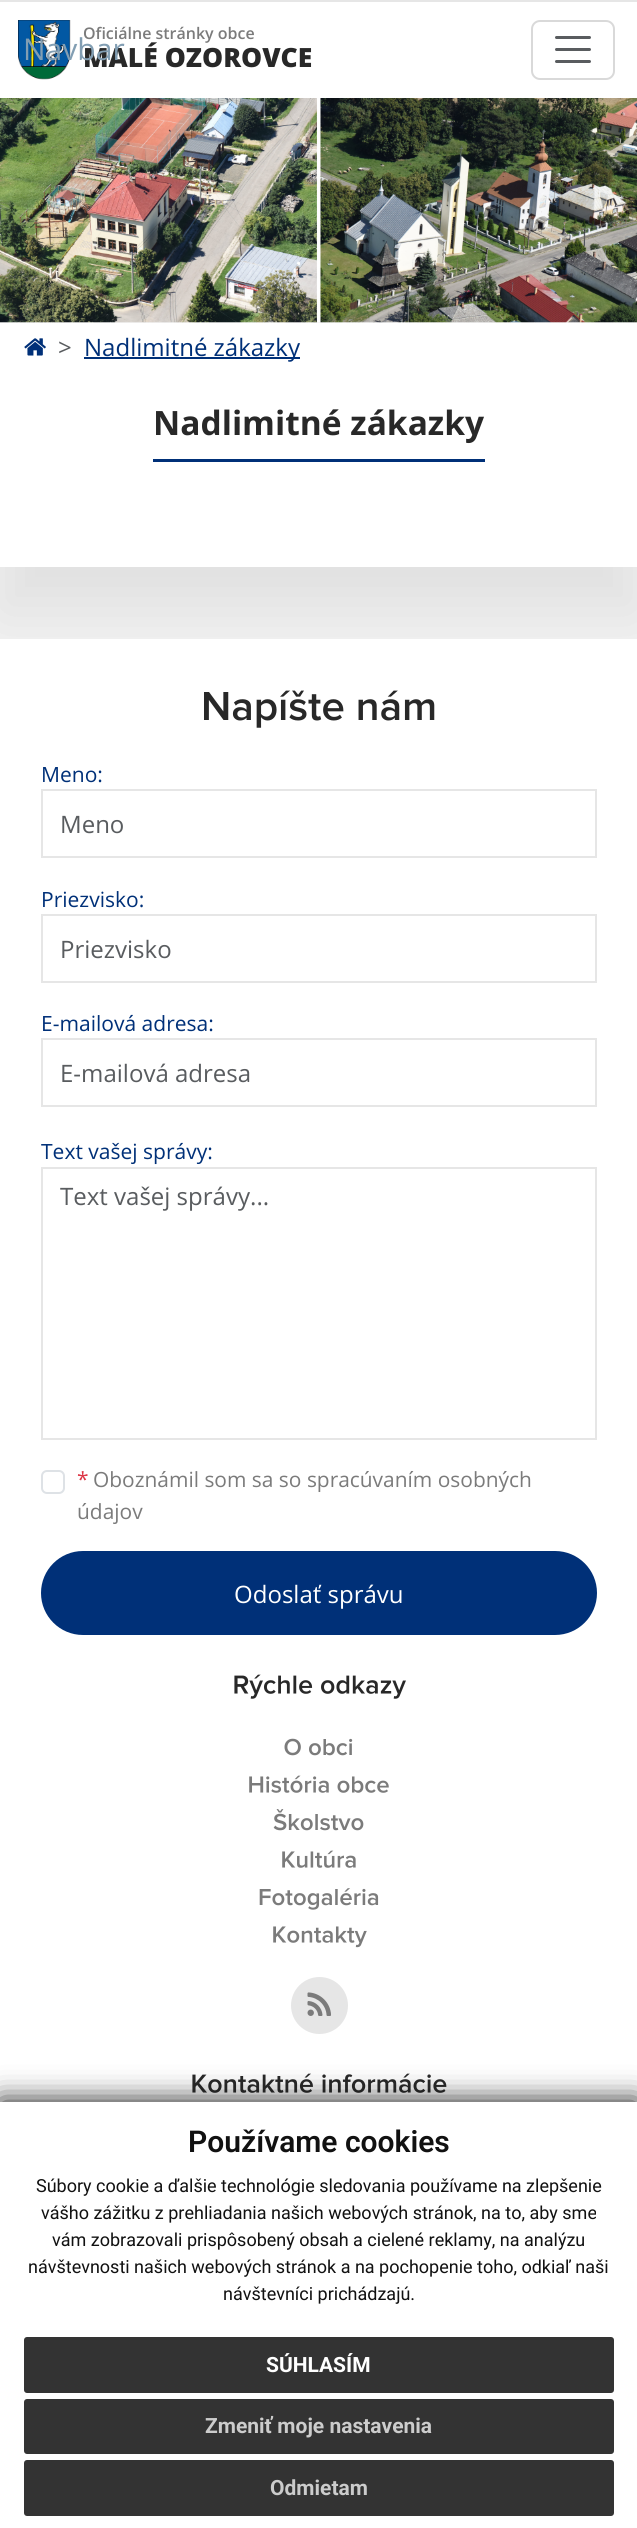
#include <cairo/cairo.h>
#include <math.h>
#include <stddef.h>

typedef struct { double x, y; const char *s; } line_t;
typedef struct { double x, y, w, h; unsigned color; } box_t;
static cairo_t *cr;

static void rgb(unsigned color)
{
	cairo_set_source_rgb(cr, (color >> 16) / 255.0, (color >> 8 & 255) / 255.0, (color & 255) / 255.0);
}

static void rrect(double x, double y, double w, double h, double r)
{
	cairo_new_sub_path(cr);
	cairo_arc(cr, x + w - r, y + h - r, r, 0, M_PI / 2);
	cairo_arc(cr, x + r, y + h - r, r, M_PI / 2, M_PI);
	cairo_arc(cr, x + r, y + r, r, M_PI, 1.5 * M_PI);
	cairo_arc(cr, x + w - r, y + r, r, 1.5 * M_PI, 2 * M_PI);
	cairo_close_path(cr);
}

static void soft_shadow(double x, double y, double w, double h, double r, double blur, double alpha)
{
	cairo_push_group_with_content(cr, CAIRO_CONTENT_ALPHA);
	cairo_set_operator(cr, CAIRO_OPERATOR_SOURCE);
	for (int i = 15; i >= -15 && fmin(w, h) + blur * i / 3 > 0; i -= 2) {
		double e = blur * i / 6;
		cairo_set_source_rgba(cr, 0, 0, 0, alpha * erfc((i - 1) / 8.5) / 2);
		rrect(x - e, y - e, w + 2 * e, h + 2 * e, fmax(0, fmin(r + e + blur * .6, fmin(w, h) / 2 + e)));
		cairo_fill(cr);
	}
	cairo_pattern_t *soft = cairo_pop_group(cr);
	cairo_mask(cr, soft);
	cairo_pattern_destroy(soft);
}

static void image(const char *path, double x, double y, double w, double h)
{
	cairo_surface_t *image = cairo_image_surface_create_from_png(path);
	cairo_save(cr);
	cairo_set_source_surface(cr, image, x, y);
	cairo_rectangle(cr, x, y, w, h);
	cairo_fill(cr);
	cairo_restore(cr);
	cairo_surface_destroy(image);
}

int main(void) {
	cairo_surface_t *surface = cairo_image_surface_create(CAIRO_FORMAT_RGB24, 637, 2528);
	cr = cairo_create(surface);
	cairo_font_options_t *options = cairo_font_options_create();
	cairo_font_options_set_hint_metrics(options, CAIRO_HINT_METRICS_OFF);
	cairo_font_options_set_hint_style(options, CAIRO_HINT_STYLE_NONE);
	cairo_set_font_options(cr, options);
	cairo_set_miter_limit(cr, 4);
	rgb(0xf1f1f1);
	cairo_paint(cr);
	rgb(0xffffff);
	cairo_rectangle(cr, 0, 2, 637, 96);
	cairo_fill(cr);
	rgb(0xe6e6e6);
	cairo_rectangle(cr, 0, 0, 637, 2);
	cairo_fill(cr);
	rrect(532, 21, 82, 58, 8);
	rgb(0xd9d9d9);
	cairo_stroke(cr);
	cairo_new_path(cr);
	cairo_move_to(cr, 556.5, 37.5);
	cairo_line_to(cr, 589.5, 37.5);
	cairo_move_to(cr, 556.5, 49.5);
	cairo_line_to(cr, 589.5, 49.5);
	cairo_move_to(cr, 556.5, 61.5);
	cairo_line_to(cr, 589.5, 61.5);
	rgb(0x595c5f);
	cairo_set_line_width(cr, 3);
	cairo_set_line_cap(cr, CAIRO_LINE_CAP_ROUND);
	cairo_stroke(cr);
	image("img/1.png", 18, 20, 53, 60);
	image("img/2.png", 0, 98, 637, 225);
	rgb(0x000000);
	soft_shadow(0, 368, 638, 244, 0, 30, 0.07);
	rgb(0xffffff);
	cairo_rectangle(cr, 0, 323, 637, 244);
	cairo_fill(cr);
	image("img/3.png", 24, 338, 22, 18);
	{
		static const box_t items[] = {
			{84, 357, 216, 2, 0x003078},
			{153, 459, 332, 3, 0x003078},
			{0, 639, 637, 1463, 0xffffff},
		};
		for (size_t i = 0; i < sizeof items / sizeof *items; i++) {
			rgb(items[i].color);
			cairo_rectangle(cr, items[i].x, items[i].y, items[i].w, items[i].h);
			cairo_fill(cr);
		}
	}
	image("img/4.png", 204, 690, 231, 38);
	cairo_rectangle(cr, 42, 790, 554, 67);
	rgb(0xe6e6e6);
	cairo_set_line_width(cr, 2);
	cairo_set_line_cap(cr, CAIRO_LINE_CAP_BUTT);
	cairo_stroke(cr);
	cairo_rectangle(cr, 42, 915, 554, 67);
	cairo_stroke(cr);
	cairo_rectangle(cr, 42, 1039, 554, 67);
	cairo_stroke(cr);
	cairo_rectangle(cr, 42, 1168, 554, 271);
	cairo_stroke(cr);
	rrect(42, 1471, 22, 22, 5);
	rgb(0xdee2e6);
	cairo_stroke(cr);
	rgb(0x003078);
	rrect(41, 1551, 556, 84, 42);
	cairo_fill(cr);
	image("img/5.png", 234, 1674, 172, 25);
	image("img/6.png", 284, 1738, 69, 18);
	image("img/7.png", 249, 1775, 140, 18);
	image("img/8.png", 273, 1809, 91, 22);
	image("img/9.png", 282, 1850, 74, 18);
	image("img/10.png", 259, 1888, 120, 22);
	image("img/11.png", 273, 1926, 94, 22);
	rgb(0xe6e6e6);
	cairo_arc(cr, 319.5, 2005.5, 28.5, 0, 2 * M_PI);
	cairo_fill(cr);
	image("img/12.png", 307, 1992, 24, 24);
	image("img/13.png", 192, 2073, 255, 20);
	rgb(0x111111);
	soft_shadow(0, 2102, 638, 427, 0, 15, 1);
	rgb(0xffffff);
	cairo_rectangle(cr, 0, 2102, 637, 426);
	cairo_fill(cr);
	rgb(0x333333);
	rrect(24, 2337, 590, 56, 3);
	cairo_fill(cr);
	rrect(24, 2399, 590, 55, 3);
	cairo_fill(cr);
	rrect(24, 2460, 590, 56, 3);
	cairo_fill(cr);
	cairo_select_font_face(cr, "Open Sans SemiBold", CAIRO_FONT_SLANT_NORMAL, CAIRO_FONT_WEIGHT_NORMAL);
	cairo_set_font_size(cr, 16);
	rgb(0x7b7b7b);
	cairo_move_to(cr, 83, 39);
	cairo_show_text(cr, "Oficiálne stránky obce");
	cairo_select_font_face(cr, "Open Sans ExtraBold", CAIRO_FONT_SLANT_NORMAL, CAIRO_FONT_WEIGHT_NORMAL);
	cairo_set_font_size(cr, 26.5);
	rgb(0x282828);
	cairo_move_to(cr, 83, 67);
	cairo_show_text(cr, "MALÉ OZOROVCE");
	cairo_select_font_face(cr, "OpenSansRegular", CAIRO_FONT_SLANT_NORMAL, CAIRO_FONT_WEIGHT_NORMAL);
	cairo_set_font_size(cr, 30);
	rgb(0x829eb3);
	cairo_move_to(cr, 23, 60);
	cairo_show_text(cr, "Navbar");
	cairo_set_font_size(cr, 24);
	rgb(0x595c5f);
	cairo_move_to(cr, 58, 356);
	cairo_show_text(cr, ">");
	rgb(0x003078);
	cairo_move_to(cr, 84, 356);
	cairo_show_text(cr, "Nadlimitné zákazky");
	cairo_select_font_face(cr, "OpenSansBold", CAIRO_FONT_SLANT_NORMAL, CAIRO_FONT_WEIGHT_BOLD);
	cairo_set_font_size(cr, 33.5);
	rgb(0x282828);
	cairo_move_to(cr, 153, 435);
	cairo_show_text(cr, "Nadlimitné zákazky");
	cairo_select_font_face(cr, "OpenSansRegular", CAIRO_FONT_SLANT_NORMAL, CAIRO_FONT_WEIGHT_NORMAL);
	cairo_set_font_size(cr, 21);
	rgb(0x003078);
	cairo_move_to(cr, 41, 782);
	cairo_show_text(cr, "Meno:");
	cairo_set_font_size(cr, 24);
	rgb(0x595c5f);
	cairo_move_to(cr, 60, 833);
	cairo_show_text(cr, "Meno");
	cairo_set_font_size(cr, 21);
	rgb(0x003078);
	cairo_move_to(cr, 41, 907);
	cairo_show_text(cr, "Priezvisko:");
	cairo_set_font_size(cr, 24);
	rgb(0x595c5f);
	cairo_move_to(cr, 60, 958);
	cairo_show_text(cr, "Priezvisko");
	cairo_set_font_size(cr, 21);
	rgb(0x003078);
	cairo_move_to(cr, 41, 1031);
	cairo_show_text(cr, "E-mailová adresa:");
	cairo_set_font_size(cr, 24);
	rgb(0x595c5f);
	cairo_move_to(cr, 60, 1082);
	cairo_show_text(cr, "E-mailová adresa");
	cairo_set_font_size(cr, 21);
	rgb(0x003078);
	cairo_move_to(cr, 41, 1159);
	cairo_show_text(cr, "Text vašej správy:");
	cairo_set_font_size(cr, 24);
	rgb(0x595c5f);
	cairo_move_to(cr, 60, 1205);
	cairo_show_text(cr, "Text vašej správy...");
	cairo_set_font_size(cr, 20.9);
	rgb(0xdc3545);
	cairo_move_to(cr, 77, 1487);
	cairo_show_text(cr, "*");
	rgb(0x7b7b7b);
	cairo_move_to(cr, 93, 1487);
	cairo_show_text(cr, "Oboznámil som sa so spracúvaním osobných");
	cairo_move_to(cr, 77, 1519);
	cairo_show_text(cr, "údajov");
	cairo_set_font_size(cr, 24);
	rgb(0xffffff);
	cairo_move_to(cr, 234, 1603);
	cairo_show_text(cr, "Odoslať správu");
	cairo_select_font_face(cr, "Roboto SemiBold", CAIRO_FONT_SLANT_NORMAL, CAIRO_FONT_WEIGHT_NORMAL);
	cairo_set_font_size(cr, 30);
	rgb(0x111111);
	cairo_move_to(cr, 188, 2152);
	cairo_show_text(cr, "Používame cookies");
	cairo_select_font_face(cr, "Roboto", CAIRO_FONT_SLANT_NORMAL, CAIRO_FONT_WEIGHT_NORMAL);
	cairo_set_font_size(cr, 18);
	{
		static const line_t items[] = {
			{36, 2192, "Súbory cookie a ďalšie technológie sledovania používame na zlepšenie"},
			{41, 2219, "vášho zážitku z prehliadania našich webových stránok, na to, aby sme"},
			{52, 2246, "vám zobrazovali prispôsobený obsah a cielené reklamy, na analýzu"},
			{28, 2273, "návštevnosti našich webových stránok a na pochopenie toho, odkiaľ naši"},
			{223, 2300, "návštevníci prichádzajú."},
		};
		for (size_t i = 0; i < sizeof items / sizeof *items; i++) {
			cairo_move_to(cr, items[i].x, items[i].y);
			cairo_show_text(cr, items[i].s);
		}
	}
	cairo_select_font_face(cr, "Roboto", CAIRO_FONT_SLANT_NORMAL, CAIRO_FONT_WEIGHT_BOLD);
	cairo_set_font_size(cr, 21);
	rgb(0xffffff);
	cairo_move_to(cr, 266, 2372);
	cairo_show_text(cr, "SÚHLASÍM");
	rgb(0xcccccc);
	cairo_move_to(cr, 205, 2433);
	cairo_show_text(cr, "Zmeniť moje nastavenia");
	cairo_move_to(cr, 270, 2495);
	cairo_show_text(cr, "Odmietam");
	cairo_surface_write_to_png(surface, "page.png");
	cairo_font_options_destroy(options);
	cairo_destroy(cr);
	cairo_surface_destroy(surface);
	return 0;
}
